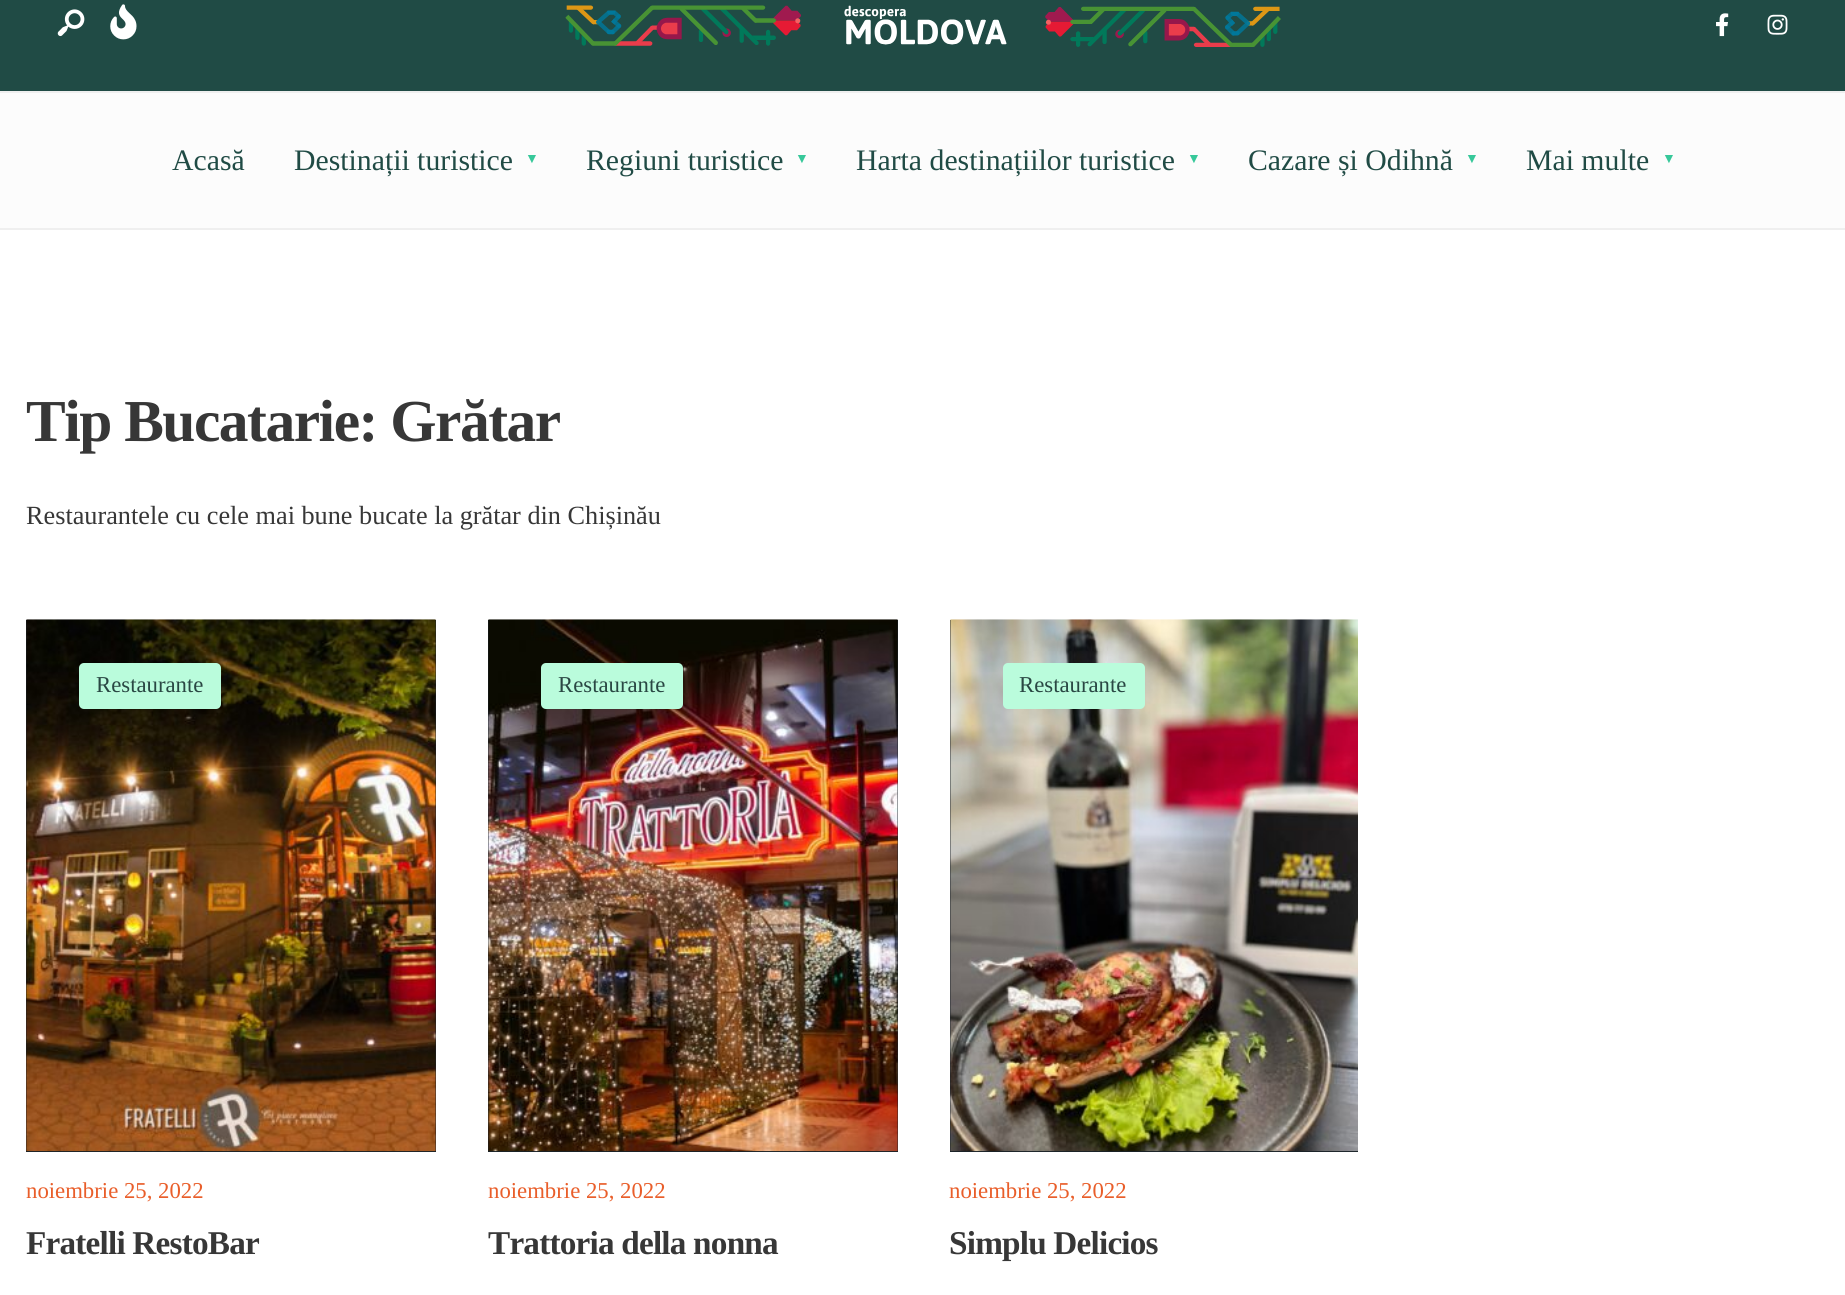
#include <cairo/cairo.h>
#include <math.h>
#include <stddef.h>

typedef struct { double x, y, w, h; unsigned color; } box_t;
static cairo_t *cr;

static void rgb(unsigned color)
{
	cairo_set_source_rgb(cr, (color >> 16) / 255.0, (color >> 8 & 255) / 255.0, (color & 255) / 255.0);
}

static void tracked(double x, double y, const char *s, double letter, double word)
{
	cairo_move_to(cr, x, y);
	while (*s) {
		char ch[5] = {0};
		int n = 0;
		do ch[n++] = *s++; while ((*s & 0xC0) == 0x80);
		cairo_show_text(cr, ch);
		cairo_rel_move_to(cr, letter + word * (*ch == ' '), 0);
	}
}

static void rrect(double x, double y, double w, double h, double r)
{
	cairo_new_sub_path(cr);
	cairo_arc(cr, x + w - r, y + h - r, r, 0, M_PI / 2);
	cairo_arc(cr, x + r, y + h - r, r, M_PI / 2, M_PI);
	cairo_arc(cr, x + r, y + r, r, M_PI, 1.5 * M_PI);
	cairo_arc(cr, x + w - r, y + r, r, 1.5 * M_PI, 2 * M_PI);
	cairo_close_path(cr);
}

static void image(const char *path, double x, double y, double w, double h)
{
	cairo_surface_t *image = cairo_image_surface_create_from_png(path);
	cairo_save(cr);
	cairo_set_source_surface(cr, image, x, y);
	cairo_rectangle(cr, x, y, w, h);
	cairo_fill(cr);
	cairo_restore(cr);
	cairo_surface_destroy(image);
}

int main(void) {
	cairo_surface_t *surface = cairo_image_surface_create(CAIRO_FORMAT_RGB24, 1845, 1295);
	cr = cairo_create(surface);
	cairo_font_options_t *options = cairo_font_options_create();
	cairo_font_options_set_hint_metrics(options, CAIRO_HINT_METRICS_OFF);
	cairo_font_options_set_hint_style(options, CAIRO_HINT_STYLE_NONE);
	cairo_set_font_options(cr, options);
	cairo_set_miter_limit(cr, 4);
	rgb(0xffffff);
	cairo_paint(cr);
	rgb(0x204b45);
	cairo_rectangle(cr, 0, 0, 1845, 91);
	cairo_fill(cr);
	rgb(0xefefef);
	cairo_rectangle(cr, 0, 91, 1845, 2);
	cairo_fill(cr);
	image("img/1.png", 57, 9, 28, 28);
	image("img/2.png", 110, 4, 27, 36);
	image("img/3.png", 565, 5, 716, 42);
	image("img/4.png", 1716, 13, 13, 24);
	image("img/5.png", 1767, 14, 21, 21);
	{
		static const box_t items[] = {
			{0, 93, 1845, 135, 0xfcfcfc},
			{0, 228, 1845, 2, 0xefefef},
			{26, 620, 410, 532, 0x192126},
		};
		for (size_t i = 0; i < sizeof items / sizeof *items; i++) {
			rgb(items[i].color);
			cairo_rectangle(cr, items[i].x, items[i].y, items[i].w, items[i].h);
			cairo_fill(cr);
		}
	}
	image("img/6.png", 26, 619, 410, 533);
	rgb(0xbafcdc);
	rrect(79, 663, 142, 46, 5);
	cairo_fill(cr);
	rgb(0x192126);
	cairo_rectangle(cr, 488, 620, 410, 532);
	cairo_fill(cr);
	image("img/7.png", 488, 619, 410, 533);
	rgb(0xbafcdc);
	rrect(541, 663, 142, 46, 5);
	cairo_fill(cr);
	rgb(0x192126);
	cairo_rectangle(cr, 950, 620, 408, 532);
	cairo_fill(cr);
	image("img/8.png", 950, 619, 408, 533);
	rgb(0xbafcdc);
	rrect(1003, 663, 142, 46, 5);
	cairo_fill(cr);
	cairo_select_font_face(cr, "Liberation Serif", CAIRO_FONT_SLANT_NORMAL, CAIRO_FONT_WEIGHT_NORMAL);
	cairo_set_font_size(cr, 29.75);
	rgb(0x204b45);
	cairo_move_to(cr, 172, 170);
	cairo_show_text(cr, "Acasă");
	cairo_move_to(cr, 294, 170);
	cairo_show_text(cr, "Destinații turistice");
	cairo_select_font_face(cr, "Liberation Sans", CAIRO_FONT_SLANT_NORMAL, CAIRO_FONT_WEIGHT_NORMAL);
	cairo_set_font_size(cr, 14);
	rgb(0x37c89a);
	cairo_move_to(cr, 525, 163);
	cairo_show_text(cr, "▼");
	cairo_select_font_face(cr, "Liberation Serif", CAIRO_FONT_SLANT_NORMAL, CAIRO_FONT_WEIGHT_NORMAL);
	cairo_set_font_size(cr, 29.75);
	rgb(0x204b45);
	cairo_move_to(cr, 586, 170);
	cairo_show_text(cr, "Regiuni turistice");
	cairo_select_font_face(cr, "Liberation Sans", CAIRO_FONT_SLANT_NORMAL, CAIRO_FONT_WEIGHT_NORMAL);
	cairo_set_font_size(cr, 14);
	rgb(0x37c89a);
	cairo_move_to(cr, 795, 163);
	cairo_show_text(cr, "▼");
	cairo_select_font_face(cr, "Liberation Serif", CAIRO_FONT_SLANT_NORMAL, CAIRO_FONT_WEIGHT_NORMAL);
	cairo_set_font_size(cr, 29.75);
	rgb(0x204b45);
	cairo_move_to(cr, 856, 170);
	cairo_show_text(cr, "Harta destinațiilor turistice");
	cairo_select_font_face(cr, "Liberation Sans", CAIRO_FONT_SLANT_NORMAL, CAIRO_FONT_WEIGHT_NORMAL);
	cairo_set_font_size(cr, 14);
	rgb(0x37c89a);
	cairo_move_to(cr, 1187, 163);
	cairo_show_text(cr, "▼");
	cairo_select_font_face(cr, "Liberation Serif", CAIRO_FONT_SLANT_NORMAL, CAIRO_FONT_WEIGHT_NORMAL);
	cairo_set_font_size(cr, 29.75);
	rgb(0x204b45);
	cairo_move_to(cr, 1248, 170);
	cairo_show_text(cr, "Cazare și Odihnă");
	cairo_select_font_face(cr, "Liberation Sans", CAIRO_FONT_SLANT_NORMAL, CAIRO_FONT_WEIGHT_NORMAL);
	cairo_set_font_size(cr, 14);
	rgb(0x37c89a);
	cairo_move_to(cr, 1465, 163);
	cairo_show_text(cr, "▼");
	cairo_select_font_face(cr, "Liberation Serif", CAIRO_FONT_SLANT_NORMAL, CAIRO_FONT_WEIGHT_NORMAL);
	cairo_set_font_size(cr, 29.75);
	rgb(0x204b45);
	cairo_move_to(cr, 1526, 170);
	cairo_show_text(cr, "Mai multe");
	cairo_select_font_face(cr, "Liberation Sans", CAIRO_FONT_SLANT_NORMAL, CAIRO_FONT_WEIGHT_NORMAL);
	cairo_set_font_size(cr, 14);
	rgb(0x37c89a);
	cairo_move_to(cr, 1662, 163);
	cairo_show_text(cr, "▼");
	cairo_select_font_face(cr, "Liberation Serif", CAIRO_FONT_SLANT_NORMAL, CAIRO_FONT_WEIGHT_BOLD);
	cairo_set_font_size(cr, 59.5);
	rgb(0x373737);
	tracked(26, 441, "Tip Bucatarie: Grătar", -1.5, 0);
	cairo_select_font_face(cr, "Liberation Serif", CAIRO_FONT_SLANT_NORMAL, CAIRO_FONT_WEIGHT_NORMAL);
	cairo_set_font_size(cr, 26.25);
	cairo_move_to(cr, 26, 524);
	cairo_show_text(cr, "Restaurantele cu cele mai bune bucate la grătar din Chișinău");
	cairo_set_font_size(cr, 22.75);
	rgb(0x294743);
	cairo_move_to(cr, 96, 692);
	cairo_show_text(cr, "Restaurante");
	rgb(0xe95e2a);
	cairo_move_to(cr, 26, 1198);
	cairo_show_text(cr, "noiembrie 25, 2022");
	cairo_select_font_face(cr, "Liberation Serif", CAIRO_FONT_SLANT_NORMAL, CAIRO_FONT_WEIGHT_BOLD);
	cairo_set_font_size(cr, 33.25);
	rgb(0x373737);
	tracked(26, 1254, "Fratelli RestoBar", -0.8, 0);
	cairo_select_font_face(cr, "Liberation Serif", CAIRO_FONT_SLANT_NORMAL, CAIRO_FONT_WEIGHT_NORMAL);
	cairo_set_font_size(cr, 22.75);
	rgb(0x294743);
	cairo_move_to(cr, 558, 692);
	cairo_show_text(cr, "Restaurante");
	rgb(0xe95e2a);
	cairo_move_to(cr, 488, 1198);
	cairo_show_text(cr, "noiembrie 25, 2022");
	cairo_select_font_face(cr, "Liberation Serif", CAIRO_FONT_SLANT_NORMAL, CAIRO_FONT_WEIGHT_BOLD);
	cairo_set_font_size(cr, 33.25);
	rgb(0x373737);
	tracked(488, 1254, "Trattoria della nonna", -0.8, 0);
	cairo_select_font_face(cr, "Liberation Serif", CAIRO_FONT_SLANT_NORMAL, CAIRO_FONT_WEIGHT_NORMAL);
	cairo_set_font_size(cr, 22.75);
	rgb(0x294743);
	cairo_move_to(cr, 1019, 692);
	cairo_show_text(cr, "Restaurante");
	rgb(0xe95e2a);
	cairo_move_to(cr, 949, 1198);
	cairo_show_text(cr, "noiembrie 25, 2022");
	cairo_select_font_face(cr, "Liberation Serif", CAIRO_FONT_SLANT_NORMAL, CAIRO_FONT_WEIGHT_BOLD);
	cairo_set_font_size(cr, 33.25);
	rgb(0x373737);
	tracked(949, 1254, "Simplu Delicios", -0.8, 0);
	cairo_surface_write_to_png(surface, "page.png");
	cairo_font_options_destroy(options);
	cairo_destroy(cr);
	cairo_surface_destroy(surface);
	return 0;
}
